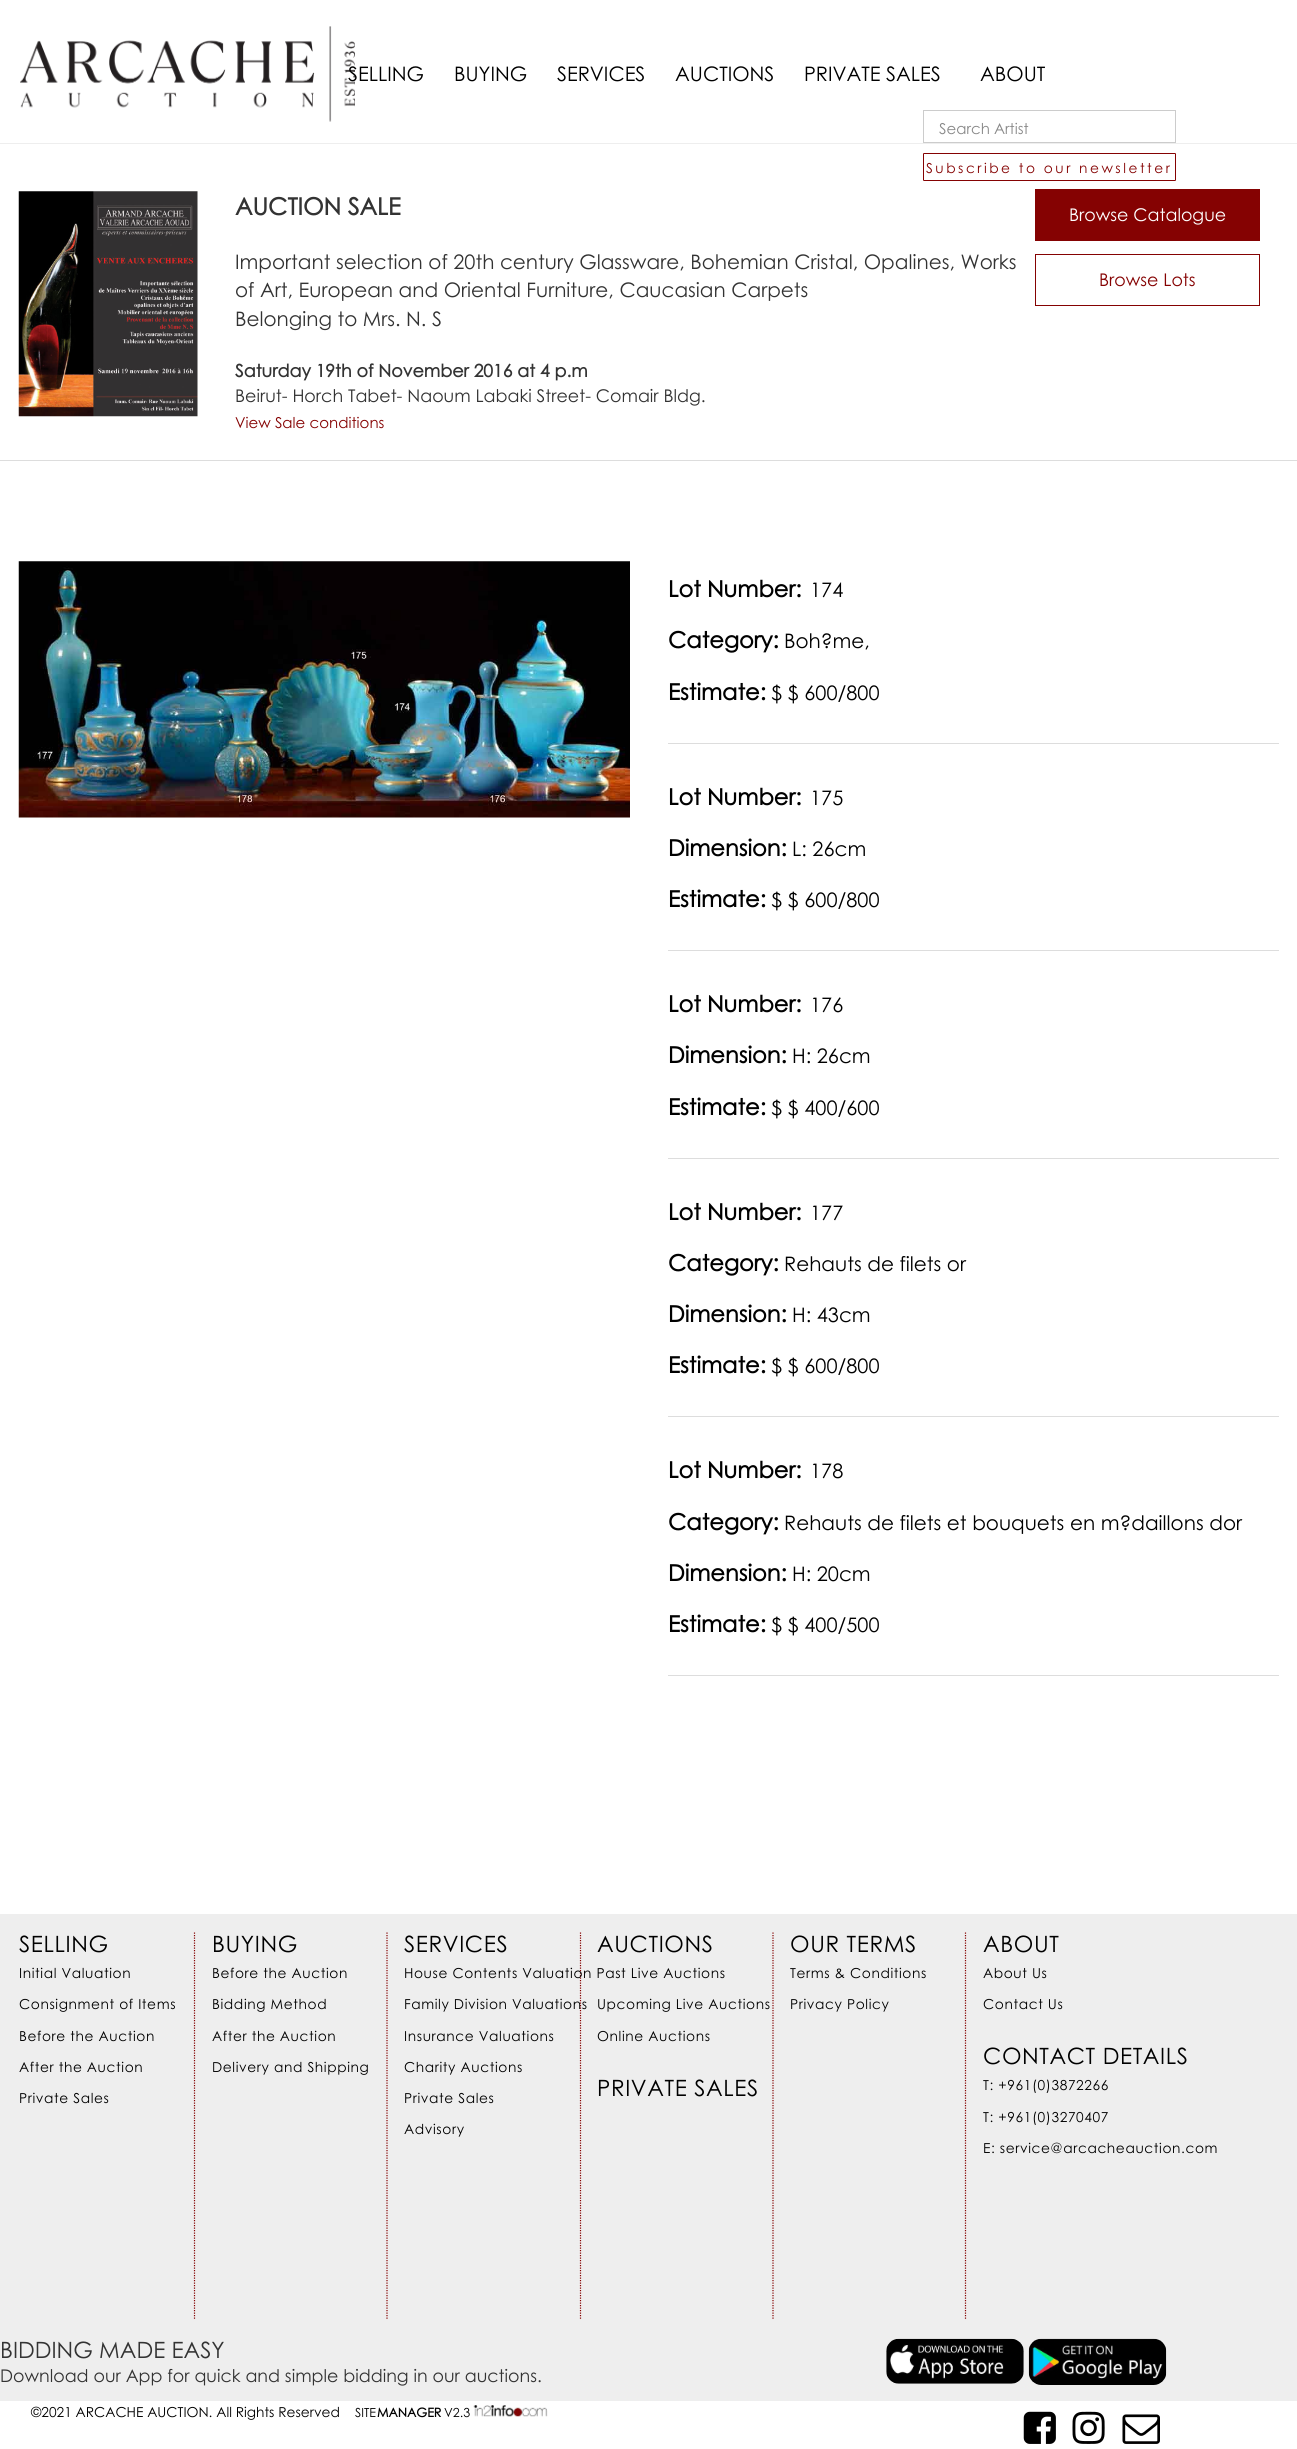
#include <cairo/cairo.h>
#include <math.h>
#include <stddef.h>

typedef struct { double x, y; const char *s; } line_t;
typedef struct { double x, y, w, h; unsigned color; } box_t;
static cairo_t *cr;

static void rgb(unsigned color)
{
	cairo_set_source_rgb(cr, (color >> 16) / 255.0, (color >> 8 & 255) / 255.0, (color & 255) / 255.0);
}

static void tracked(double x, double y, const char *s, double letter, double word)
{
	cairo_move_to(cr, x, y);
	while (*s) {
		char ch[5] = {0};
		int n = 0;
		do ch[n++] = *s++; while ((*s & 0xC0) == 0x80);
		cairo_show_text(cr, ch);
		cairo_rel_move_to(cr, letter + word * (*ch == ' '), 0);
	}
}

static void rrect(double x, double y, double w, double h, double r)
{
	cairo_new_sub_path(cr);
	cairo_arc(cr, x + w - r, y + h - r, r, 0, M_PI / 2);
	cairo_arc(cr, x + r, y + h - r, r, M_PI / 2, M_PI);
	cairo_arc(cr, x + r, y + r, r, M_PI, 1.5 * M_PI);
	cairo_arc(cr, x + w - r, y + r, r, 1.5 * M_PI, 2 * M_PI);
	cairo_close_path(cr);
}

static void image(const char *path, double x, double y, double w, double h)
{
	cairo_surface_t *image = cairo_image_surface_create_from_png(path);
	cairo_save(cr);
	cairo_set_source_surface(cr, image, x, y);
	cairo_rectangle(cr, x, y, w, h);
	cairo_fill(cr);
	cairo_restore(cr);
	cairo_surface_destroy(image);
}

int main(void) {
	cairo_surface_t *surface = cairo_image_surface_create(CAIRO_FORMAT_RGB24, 1297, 2449);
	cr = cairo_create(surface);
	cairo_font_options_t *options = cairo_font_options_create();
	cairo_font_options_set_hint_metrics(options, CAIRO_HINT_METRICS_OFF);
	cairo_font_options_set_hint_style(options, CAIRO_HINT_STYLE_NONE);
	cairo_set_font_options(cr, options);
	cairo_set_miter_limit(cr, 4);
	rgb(0xffffff);
	cairo_paint(cr);
	rgb(0xeeeeee);
	cairo_rectangle(cr, 0, 143, 1297, 1);
	cairo_fill(cr);
	image("img/1.png", 20, 26, 335, 96);
	cairo_rectangle(cr, 923.5, 110.5, 252, 32);
	rgb(0xcccccc);
	cairo_set_line_width(cr, 1);
	cairo_stroke(cr);
	rrect(923.5, 153.5, 252, 27, 0.5);
	rgb(0x850202);
	cairo_stroke(cr);
	image("img/2.png", 18, 191, 180, 226);
	cairo_rectangle(cr, 1035, 189, 225, 52);
	cairo_fill(cr);
	cairo_rectangle(cr, 1035.5, 254.5, 224, 51);
	cairo_stroke(cr);
	rgb(0xdddddd);
	cairo_rectangle(cr, 0, 460, 1297, 1);
	cairo_fill(cr);
	image("img/3.png", 18, 561, 612, 257);
	{
		static const box_t items[] = {
			{668, 743, 611, 1, 0xdddddd},
			{668, 950, 611, 1, 0xdddddd},
			{668, 1158, 611, 1, 0xdddddd},
			{668, 1416, 611, 1, 0xdddddd},
			{668, 1675, 611, 1, 0xdddddd},
			{0, 1914, 1297, 487, 0xeeeeee},
		};
		for (size_t i = 0; i < sizeof items / sizeof *items; i++) {
			rgb(items[i].color);
			cairo_rectangle(cr, items[i].x, items[i].y, items[i].w, items[i].h);
			cairo_fill(cr);
		}
	}
	cairo_new_path(cr);
	cairo_move_to(cr, 194.5, 1932.5);
	cairo_line_to(cr, 194.5, 2320);
	rgb(0x850202);
	cairo_set_line_width(cr, 1.2);
	cairo_set_dash(cr, (double[]){1.25, 1.25}, 2, 0);
	cairo_stroke(cr);
	cairo_new_path(cr);
	cairo_move_to(cr, 387, 1932.5);
	cairo_line_to(cr, 387, 2320);
	cairo_stroke(cr);
	cairo_new_path(cr);
	cairo_move_to(cr, 580.5, 1932.5);
	cairo_line_to(cr, 580.5, 2320);
	cairo_stroke(cr);
	cairo_new_path(cr);
	cairo_move_to(cr, 773, 1932.5);
	cairo_line_to(cr, 773, 2320);
	cairo_stroke(cr);
	cairo_new_path(cr);
	cairo_move_to(cr, 965.5, 1932.5);
	cairo_line_to(cr, 965.5, 2320);
	cairo_stroke(cr);
	image("img/4.png", 886, 2338, 138, 46);
	image("img/5.png", 1028, 2338, 139, 47);
	image("img/6.png", 473, 2405, 75, 12);
	image("img/7.png", 1023, 2411, 33, 33);
	image("img/8.png", 1072, 2411, 33, 33);
	image("img/9.png", 1122, 2414, 38, 30);
	cairo_select_font_face(cr, "Century Gothic", CAIRO_FONT_SLANT_NORMAL, CAIRO_FONT_WEIGHT_NORMAL);
	cairo_set_font_size(cr, 20);
	rgb(0x000000);
	{
		static const line_t items[] = {
			{348, 81, "SELLING"},
			{454, 81, "BUYING"},
			{557, 81, "SERVICES"},
			{675, 81, "AUCTIONS"},
			{804, 81, "PRIVATE SALES"},
			{980, 81, "ABOUT"},
		};
		for (size_t i = 0; i < sizeof items / sizeof *items; i++) {
			cairo_move_to(cr, items[i].x, items[i].y);
			cairo_show_text(cr, items[i].s);
		}
	}
	cairo_set_font_size(cr, 15);
	rgb(0x888888);
	cairo_move_to(cr, 939, 134);
	cairo_show_text(cr, "Search Artist");
	cairo_set_font_size(cr, 13.75);
	rgb(0x850202);
	tracked(926, 173, "Subscribe to our newsletter", 2.5, 0);
	cairo_select_font_face(cr, "Century Gothic", CAIRO_FONT_SLANT_NORMAL, CAIRO_FONT_WEIGHT_BOLD);
	cairo_set_font_size(cr, 23.75);
	rgb(0x333333);
	cairo_move_to(cr, 235, 215);
	cairo_show_text(cr, "AUCTION SALE");
	cairo_select_font_face(cr, "Century Gothic", CAIRO_FONT_SLANT_NORMAL, CAIRO_FONT_WEIGHT_NORMAL);
	cairo_set_font_size(cr, 20);
	{
		static const line_t items[] = {
			{235, 269, "Important selection of 20th century Glassware, Bohemian Cristal, Opalines, Works"},
			{235, 297, "of Art, European and Oriental Furniture, Caucasian Carpets"},
			{235, 326, "Belonging to Mrs. N. S"},
		};
		for (size_t i = 0; i < sizeof items / sizeof *items; i++) {
			cairo_move_to(cr, items[i].x, items[i].y);
			cairo_show_text(cr, items[i].s);
		}
	}
	cairo_select_font_face(cr, "Century Gothic", CAIRO_FONT_SLANT_NORMAL, CAIRO_FONT_WEIGHT_BOLD);
	cairo_set_font_size(cr, 17.5);
	cairo_move_to(cr, 235, 377);
	cairo_show_text(cr, "Saturday 19th of November 2016 at 4 p.m");
	cairo_select_font_face(cr, "Century Gothic", CAIRO_FONT_SLANT_NORMAL, CAIRO_FONT_WEIGHT_NORMAL);
	cairo_move_to(cr, 235, 402);
	cairo_show_text(cr, "Beirut- Horch Tabet- Naoum Labaki Street- Comair Bldg.");
	rgb(0xffffff);
	cairo_move_to(cr, 1069, 221);
	cairo_show_text(cr, "Browse Catalogue");
	rgb(0x850202);
	cairo_move_to(cr, 1099, 286);
	cairo_show_text(cr, "Browse Lots");
	cairo_set_font_size(cr, 15);
	cairo_move_to(cr, 235, 428);
	cairo_show_text(cr, "View Sale conditions");
	cairo_select_font_face(cr, "Century Gothic", CAIRO_FONT_SLANT_NORMAL, CAIRO_FONT_WEIGHT_BOLD);
	cairo_set_font_size(cr, 22.5);
	rgb(0x000000);
	cairo_move_to(cr, 668, 597);
	cairo_show_text(cr, "Lot Number:");
	cairo_select_font_face(cr, "Century Gothic", CAIRO_FONT_SLANT_NORMAL, CAIRO_FONT_WEIGHT_NORMAL);
	cairo_set_font_size(cr, 20);
	cairo_move_to(cr, 810, 597);
	cairo_show_text(cr, "174");
	cairo_select_font_face(cr, "Century Gothic", CAIRO_FONT_SLANT_NORMAL, CAIRO_FONT_WEIGHT_BOLD);
	cairo_set_font_size(cr, 22.5);
	cairo_move_to(cr, 668, 648);
	cairo_show_text(cr, "Category:");
	cairo_select_font_face(cr, "Century Gothic", CAIRO_FONT_SLANT_NORMAL, CAIRO_FONT_WEIGHT_NORMAL);
	cairo_set_font_size(cr, 20);
	cairo_move_to(cr, 784, 648);
	cairo_show_text(cr, "Boh?me,");
	cairo_select_font_face(cr, "Century Gothic", CAIRO_FONT_SLANT_NORMAL, CAIRO_FONT_WEIGHT_BOLD);
	cairo_set_font_size(cr, 22.5);
	cairo_move_to(cr, 668, 700);
	cairo_show_text(cr, "Estimate:");
	cairo_select_font_face(cr, "Century Gothic", CAIRO_FONT_SLANT_NORMAL, CAIRO_FONT_WEIGHT_NORMAL);
	cairo_set_font_size(cr, 20);
	cairo_move_to(cr, 771, 700);
	cairo_show_text(cr, "$ $ 600/800");
	cairo_select_font_face(cr, "Century Gothic", CAIRO_FONT_SLANT_NORMAL, CAIRO_FONT_WEIGHT_BOLD);
	cairo_set_font_size(cr, 22.5);
	cairo_move_to(cr, 668, 805);
	cairo_show_text(cr, "Lot Number:");
	cairo_select_font_face(cr, "Century Gothic", CAIRO_FONT_SLANT_NORMAL, CAIRO_FONT_WEIGHT_NORMAL);
	cairo_set_font_size(cr, 20);
	cairo_move_to(cr, 810, 805);
	cairo_show_text(cr, "175");
	cairo_select_font_face(cr, "Century Gothic", CAIRO_FONT_SLANT_NORMAL, CAIRO_FONT_WEIGHT_BOLD);
	cairo_set_font_size(cr, 22.5);
	cairo_move_to(cr, 668, 856);
	cairo_show_text(cr, "Dimension:");
	cairo_select_font_face(cr, "Century Gothic", CAIRO_FONT_SLANT_NORMAL, CAIRO_FONT_WEIGHT_NORMAL);
	cairo_set_font_size(cr, 20);
	cairo_move_to(cr, 792, 856);
	cairo_show_text(cr, "L: 26cm");
	cairo_select_font_face(cr, "Century Gothic", CAIRO_FONT_SLANT_NORMAL, CAIRO_FONT_WEIGHT_BOLD);
	cairo_set_font_size(cr, 22.5);
	cairo_move_to(cr, 668, 907);
	cairo_show_text(cr, "Estimate:");
	cairo_select_font_face(cr, "Century Gothic", CAIRO_FONT_SLANT_NORMAL, CAIRO_FONT_WEIGHT_NORMAL);
	cairo_set_font_size(cr, 20);
	cairo_move_to(cr, 771, 907);
	cairo_show_text(cr, "$ $ 600/800");
	cairo_select_font_face(cr, "Century Gothic", CAIRO_FONT_SLANT_NORMAL, CAIRO_FONT_WEIGHT_BOLD);
	cairo_set_font_size(cr, 22.5);
	cairo_move_to(cr, 668, 1012);
	cairo_show_text(cr, "Lot Number:");
	cairo_select_font_face(cr, "Century Gothic", CAIRO_FONT_SLANT_NORMAL, CAIRO_FONT_WEIGHT_NORMAL);
	cairo_set_font_size(cr, 20);
	cairo_move_to(cr, 810, 1012);
	cairo_show_text(cr, "176");
	cairo_select_font_face(cr, "Century Gothic", CAIRO_FONT_SLANT_NORMAL, CAIRO_FONT_WEIGHT_BOLD);
	cairo_set_font_size(cr, 22.5);
	cairo_move_to(cr, 668, 1063);
	cairo_show_text(cr, "Dimension:");
	cairo_select_font_face(cr, "Century Gothic", CAIRO_FONT_SLANT_NORMAL, CAIRO_FONT_WEIGHT_NORMAL);
	cairo_set_font_size(cr, 20);
	cairo_move_to(cr, 792, 1063);
	cairo_show_text(cr, "H: 26cm");
	cairo_select_font_face(cr, "Century Gothic", CAIRO_FONT_SLANT_NORMAL, CAIRO_FONT_WEIGHT_BOLD);
	cairo_set_font_size(cr, 22.5);
	cairo_move_to(cr, 668, 1115);
	cairo_show_text(cr, "Estimate:");
	cairo_select_font_face(cr, "Century Gothic", CAIRO_FONT_SLANT_NORMAL, CAIRO_FONT_WEIGHT_NORMAL);
	cairo_set_font_size(cr, 20);
	cairo_move_to(cr, 771, 1115);
	cairo_show_text(cr, "$ $ 400/600");
	cairo_select_font_face(cr, "Century Gothic", CAIRO_FONT_SLANT_NORMAL, CAIRO_FONT_WEIGHT_BOLD);
	cairo_set_font_size(cr, 22.5);
	cairo_move_to(cr, 668, 1220);
	cairo_show_text(cr, "Lot Number:");
	cairo_select_font_face(cr, "Century Gothic", CAIRO_FONT_SLANT_NORMAL, CAIRO_FONT_WEIGHT_NORMAL);
	cairo_set_font_size(cr, 20);
	cairo_move_to(cr, 810, 1220);
	cairo_show_text(cr, "177");
	cairo_select_font_face(cr, "Century Gothic", CAIRO_FONT_SLANT_NORMAL, CAIRO_FONT_WEIGHT_BOLD);
	cairo_set_font_size(cr, 22.5);
	cairo_move_to(cr, 668, 1271);
	cairo_show_text(cr, "Category:");
	cairo_select_font_face(cr, "Century Gothic", CAIRO_FONT_SLANT_NORMAL, CAIRO_FONT_WEIGHT_NORMAL);
	cairo_set_font_size(cr, 20);
	cairo_move_to(cr, 784, 1271);
	cairo_show_text(cr, "Rehauts de filets or");
	cairo_select_font_face(cr, "Century Gothic", CAIRO_FONT_SLANT_NORMAL, CAIRO_FONT_WEIGHT_BOLD);
	cairo_set_font_size(cr, 22.5);
	cairo_move_to(cr, 668, 1322);
	cairo_show_text(cr, "Dimension:");
	cairo_select_font_face(cr, "Century Gothic", CAIRO_FONT_SLANT_NORMAL, CAIRO_FONT_WEIGHT_NORMAL);
	cairo_set_font_size(cr, 20);
	cairo_move_to(cr, 792, 1322);
	cairo_show_text(cr, "H: 43cm");
	cairo_select_font_face(cr, "Century Gothic", CAIRO_FONT_SLANT_NORMAL, CAIRO_FONT_WEIGHT_BOLD);
	cairo_set_font_size(cr, 22.5);
	cairo_move_to(cr, 668, 1373);
	cairo_show_text(cr, "Estimate:");
	cairo_select_font_face(cr, "Century Gothic", CAIRO_FONT_SLANT_NORMAL, CAIRO_FONT_WEIGHT_NORMAL);
	cairo_set_font_size(cr, 20);
	cairo_move_to(cr, 771, 1373);
	cairo_show_text(cr, "$ $ 600/800");
	cairo_select_font_face(cr, "Century Gothic", CAIRO_FONT_SLANT_NORMAL, CAIRO_FONT_WEIGHT_BOLD);
	cairo_set_font_size(cr, 22.5);
	cairo_move_to(cr, 668, 1478);
	cairo_show_text(cr, "Lot Number:");
	cairo_select_font_face(cr, "Century Gothic", CAIRO_FONT_SLANT_NORMAL, CAIRO_FONT_WEIGHT_NORMAL);
	cairo_set_font_size(cr, 20);
	cairo_move_to(cr, 810, 1478);
	cairo_show_text(cr, "178");
	cairo_select_font_face(cr, "Century Gothic", CAIRO_FONT_SLANT_NORMAL, CAIRO_FONT_WEIGHT_BOLD);
	cairo_set_font_size(cr, 22.5);
	cairo_move_to(cr, 668, 1530);
	cairo_show_text(cr, "Category:");
	cairo_select_font_face(cr, "Century Gothic", CAIRO_FONT_SLANT_NORMAL, CAIRO_FONT_WEIGHT_NORMAL);
	cairo_set_font_size(cr, 20);
	cairo_move_to(cr, 784, 1530);
	cairo_show_text(cr, "Rehauts de filets et bouquets en m?daillons dor");
	cairo_select_font_face(cr, "Century Gothic", CAIRO_FONT_SLANT_NORMAL, CAIRO_FONT_WEIGHT_BOLD);
	cairo_set_font_size(cr, 22.5);
	cairo_move_to(cr, 668, 1581);
	cairo_show_text(cr, "Dimension:");
	cairo_select_font_face(cr, "Century Gothic", CAIRO_FONT_SLANT_NORMAL, CAIRO_FONT_WEIGHT_NORMAL);
	cairo_set_font_size(cr, 20);
	cairo_move_to(cr, 792, 1581);
	cairo_show_text(cr, "H: 20cm");
	cairo_select_font_face(cr, "Century Gothic", CAIRO_FONT_SLANT_NORMAL, CAIRO_FONT_WEIGHT_BOLD);
	cairo_set_font_size(cr, 22.5);
	cairo_move_to(cr, 668, 1632);
	cairo_show_text(cr, "Estimate:");
	cairo_select_font_face(cr, "Century Gothic", CAIRO_FONT_SLANT_NORMAL, CAIRO_FONT_WEIGHT_NORMAL);
	cairo_set_font_size(cr, 20);
	cairo_move_to(cr, 771, 1632);
	cairo_show_text(cr, "$ $ 400/500");
	cairo_set_font_size(cr, 22.5);
	tracked(19, 1952, "SELLING", 0.6, 0);
	cairo_set_font_size(cr, 13.75);
	{
		static const line_t items[] = {
			{19, 1978, "Initial Valuation"},
			{19, 2009, "Consignment of Items"},
			{19, 2041, "Before the Auction"},
			{19, 2072, "After the Auction"},
			{19, 2103, "Private Sales"},
		};
		for (size_t i = 0; i < sizeof items / sizeof *items; i++) {
			tracked(items[i].x, items[i].y, items[i].s, 0.6, 0);
		}
	}
	cairo_set_font_size(cr, 22.5);
	tracked(212, 1952, "BUYING", 0.6, 0);
	cairo_set_font_size(cr, 13.75);
	{
		static const line_t items[] = {
			{212, 1978, "Before the Auction"},
			{212, 2009, "Bidding Method"},
			{212, 2041, "After the Auction"},
			{212, 2072, "Delivery and Shipping"},
		};
		for (size_t i = 0; i < sizeof items / sizeof *items; i++) {
			tracked(items[i].x, items[i].y, items[i].s, 0.6, 0);
		}
	}
	cairo_set_font_size(cr, 22.5);
	tracked(404, 1952, "SERVICES", 0.6, 0);
	cairo_set_font_size(cr, 13.75);
	{
		static const line_t items[] = {
			{404, 1978, "House Contents Valuation Past Live Auctions"},
			{404, 2009, "Family Division Valuations"},
			{404, 2041, "Insurance Valuations"},
			{404, 2072, "Charity Auctions"},
			{404, 2103, "Private Sales"},
			{404, 2134, "Advisory"},
		};
		for (size_t i = 0; i < sizeof items / sizeof *items; i++) {
			tracked(items[i].x, items[i].y, items[i].s, 0.6, 0);
		}
	}
	cairo_set_font_size(cr, 22.5);
	tracked(597, 1952, "AUCTIONS", 0.6, 0);
	cairo_set_font_size(cr, 13.75);
	tracked(597, 2009, "Upcoming Live Auctions", 0.6, 0);
	tracked(597, 2041, "Online Auctions", 0.6, 0);
	cairo_set_font_size(cr, 22.5);
	tracked(597, 2096, "PRIVATE SALES", 0.6, 0);
	tracked(790, 1952, "OUR TERMS", 0.6, 0);
	cairo_set_font_size(cr, 13.75);
	tracked(790, 1978, "Terms & Conditions", 0.6, 0);
	tracked(790, 2009, "Privacy Policy", 0.6, 0);
	cairo_set_font_size(cr, 22.5);
	tracked(983, 1952, "ABOUT", 0.6, 0);
	cairo_set_font_size(cr, 13.75);
	tracked(983, 1978, "About Us", 0.6, 0);
	tracked(983, 2009, "Contact Us", 0.6, 0);
	cairo_set_font_size(cr, 22.5);
	tracked(983, 2064, "CONTACT DETAILS", 0.6, 0);
	cairo_set_font_size(cr, 13.75);
	{
		static const line_t items[] = {
			{983, 2090, "T: +961(0)3872266"},
			{983, 2122, "T: +961(0)3270407"},
			{983, 2153, "E: service@arcacheauction.com"},
		};
		for (size_t i = 0; i < sizeof items / sizeof *items; i++) {
			tracked(items[i].x, items[i].y, items[i].s, 0.6, 0);
		}
	}
	cairo_set_font_size(cr, 22.5);
	rgb(0x333333);
	cairo_move_to(cr, 0, 2358);
	cairo_show_text(cr, "BIDDING MADE EASY");
	cairo_set_font_size(cr, 17.5);
	cairo_move_to(cr, 0, 2382);
	cairo_show_text(cr, "Download our App for quick and simple bidding in our auctions.");
	cairo_set_font_size(cr, 13.75);
	rgb(0x000000);
	cairo_move_to(cr, 31, 2417);
	cairo_show_text(cr, "©2021 ARCACHE AUCTION. All Rights Reserved");
	cairo_set_font_size(cr, 12.5);
	cairo_move_to(cr, 355, 2417);
	cairo_show_text(cr, "SITE");
	cairo_select_font_face(cr, "Century Gothic", CAIRO_FONT_SLANT_NORMAL, CAIRO_FONT_WEIGHT_BOLD);
	cairo_move_to(cr, 377, 2417);
	cairo_show_text(cr, "MANAGER");
	cairo_select_font_face(cr, "Century Gothic", CAIRO_FONT_SLANT_NORMAL, CAIRO_FONT_WEIGHT_NORMAL);
	cairo_move_to(cr, 444, 2417);
	cairo_show_text(cr, "V2.3");
	cairo_surface_write_to_png(surface, "page.png");
	cairo_font_options_destroy(options);
	cairo_destroy(cr);
	cairo_surface_destroy(surface);
	return 0;
}
